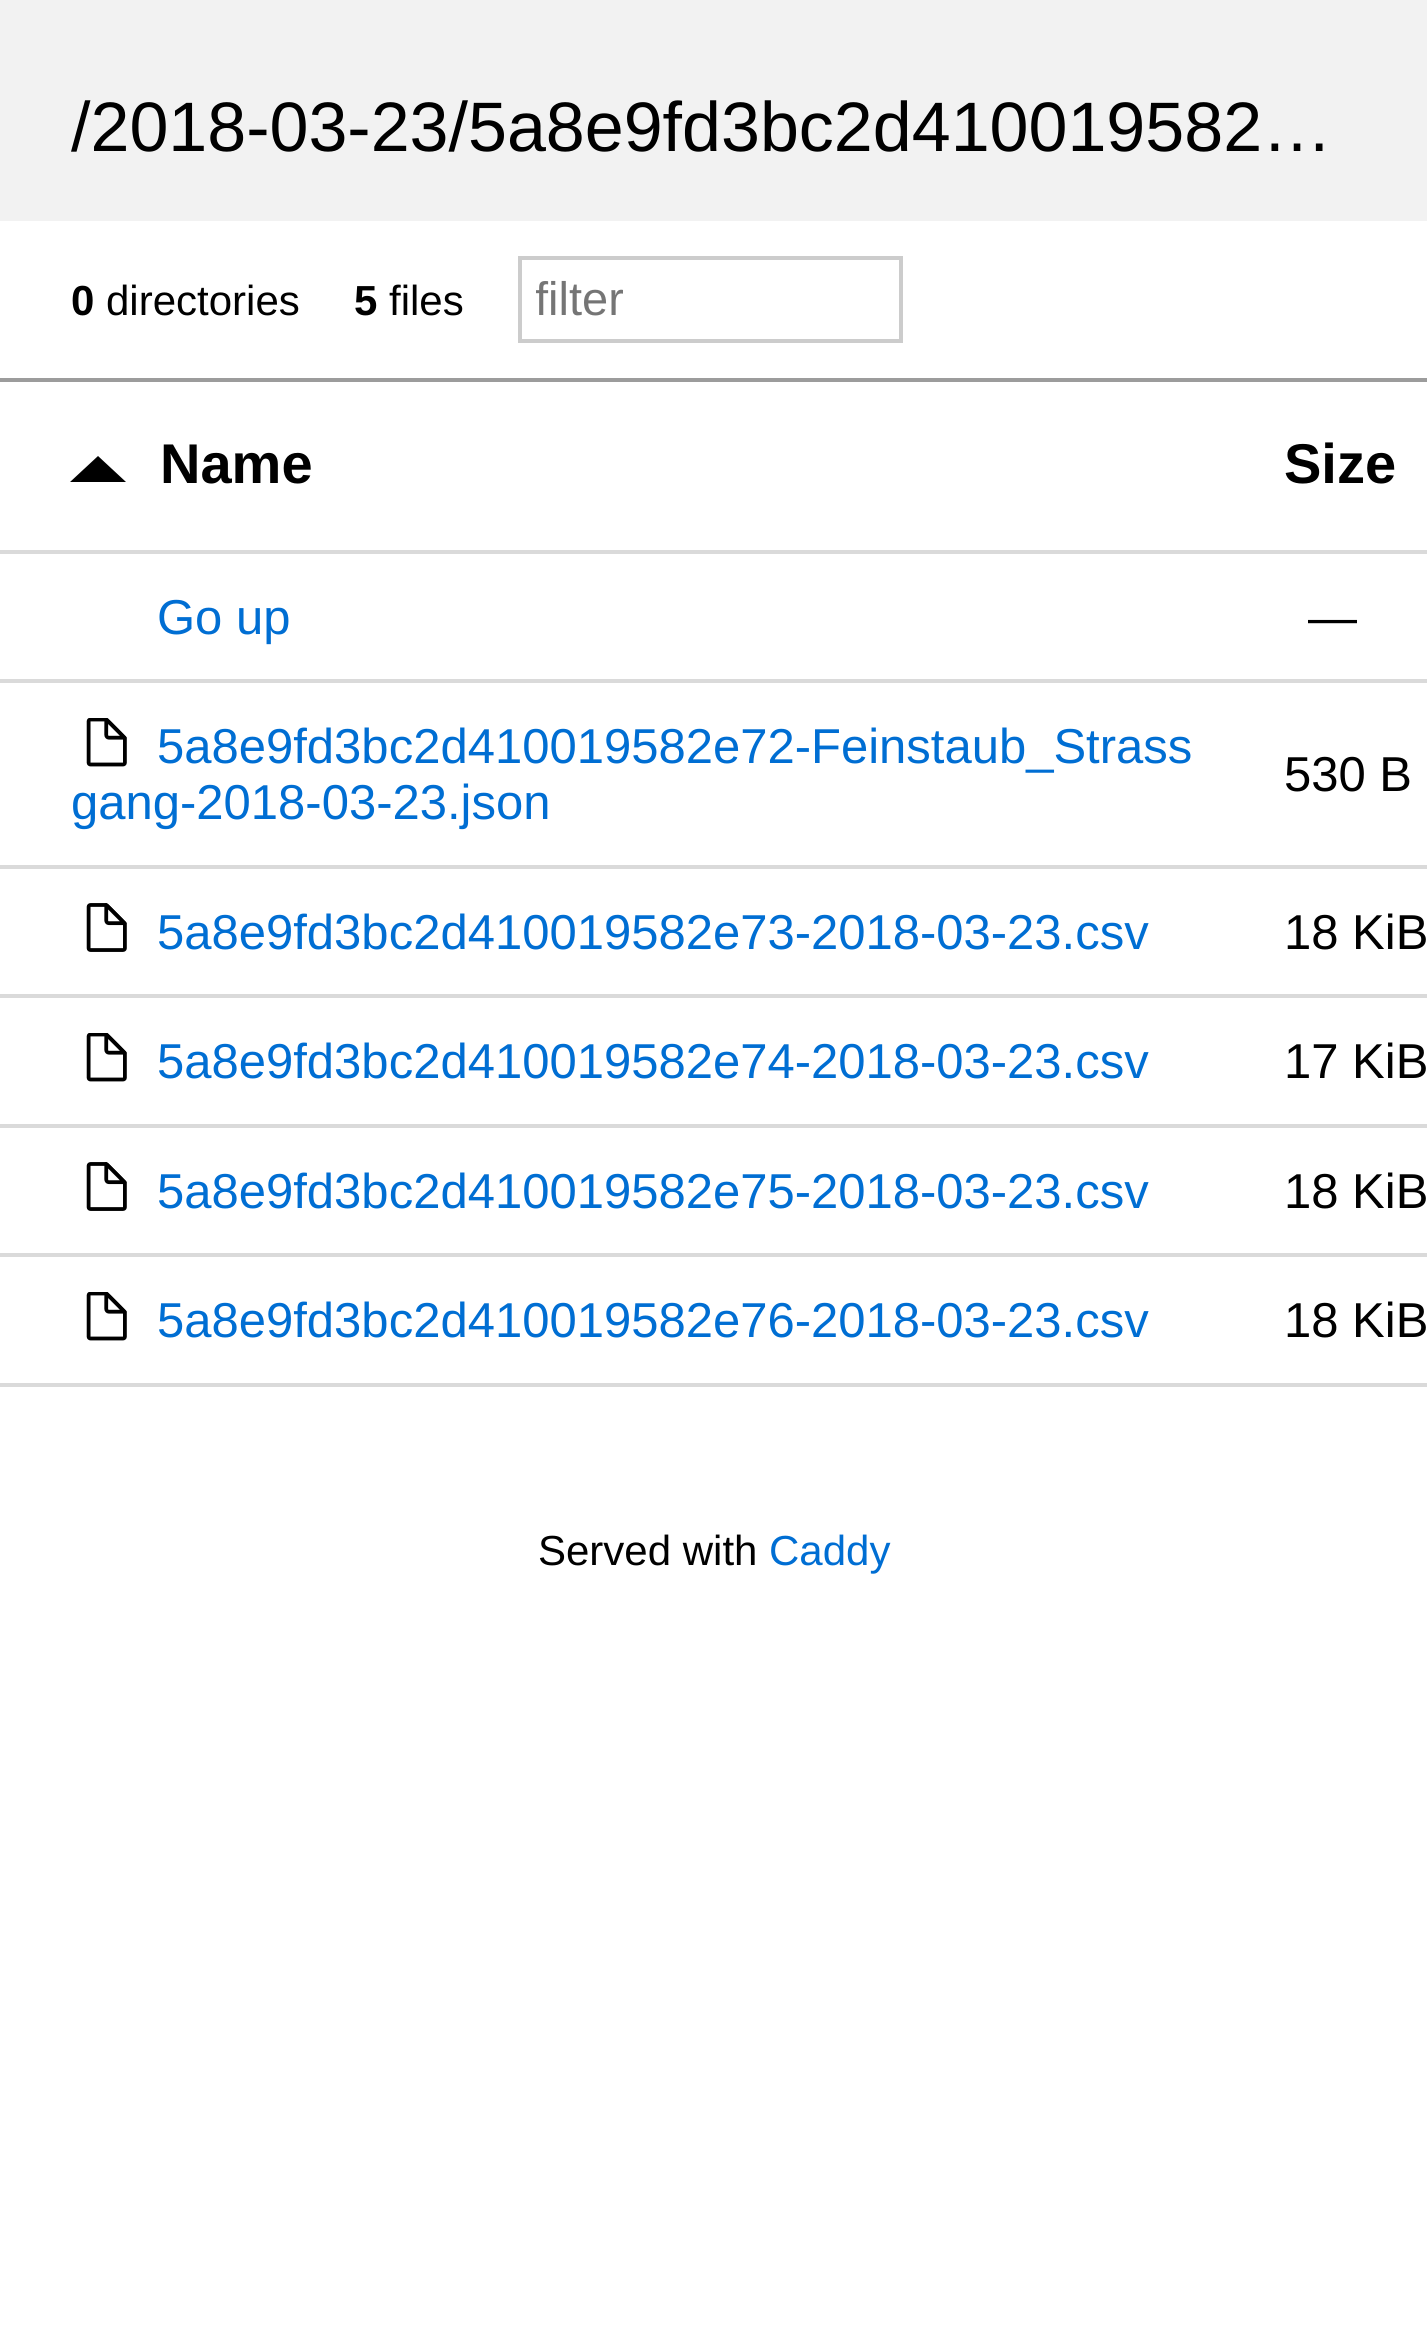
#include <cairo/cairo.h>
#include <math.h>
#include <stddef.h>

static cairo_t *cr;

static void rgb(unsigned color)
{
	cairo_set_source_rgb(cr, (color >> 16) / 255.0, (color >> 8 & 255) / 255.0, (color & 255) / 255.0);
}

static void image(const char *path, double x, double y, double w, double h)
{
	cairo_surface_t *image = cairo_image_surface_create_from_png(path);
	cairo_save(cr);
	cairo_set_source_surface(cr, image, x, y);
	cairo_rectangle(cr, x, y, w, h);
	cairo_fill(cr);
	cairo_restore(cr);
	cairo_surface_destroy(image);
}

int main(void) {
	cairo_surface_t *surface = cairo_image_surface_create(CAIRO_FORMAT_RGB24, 1427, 2332);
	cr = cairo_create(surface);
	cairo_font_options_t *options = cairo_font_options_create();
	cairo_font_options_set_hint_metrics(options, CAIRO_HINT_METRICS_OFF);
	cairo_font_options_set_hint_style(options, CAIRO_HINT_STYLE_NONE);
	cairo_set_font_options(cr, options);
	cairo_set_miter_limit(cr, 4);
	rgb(0xffffff);
	cairo_paint(cr);
	rgb(0xf2f2f2);
	cairo_rectangle(cr, 0, 0, 1427, 221);
	cairo_fill(cr);
	rgb(0x9c9c9c);
	cairo_rectangle(cr, 0, 378, 1427, 4);
	cairo_fill(cr);
	cairo_rectangle(cr, 520, 258, 381, 83);
	rgb(0xcccccc);
	cairo_set_line_width(cr, 4);
	cairo_stroke(cr);
	rgb(0xdadada);
	cairo_rectangle(cr, 0, 550, 1427, 4);
	cairo_fill(cr);
	rgb(0x000000);
	cairo_new_path(cr);
	cairo_move_to(cr, 126, 482);
	cairo_line_to(cr, 70, 482);
	cairo_line_to(cr, 98, 456);
	cairo_line_to(cr, 112, 469);
	cairo_close_path(cr);
	cairo_fill(cr);
	rgb(0xdadada);
	cairo_rectangle(cr, 0, 679, 1427, 4);
	cairo_fill(cr);
	cairo_rectangle(cr, 0, 865, 1427, 4);
	cairo_fill(cr);
	image("img/1.png", 86, 718, 41, 49);
	cairo_rectangle(cr, 0, 994, 1427, 4);
	cairo_fill(cr);
	image("img/2.png", 86, 903, 41, 49);
	cairo_rectangle(cr, 0, 1124, 1427, 4);
	cairo_fill(cr);
	image("img/1.png", 86, 1033, 41, 49);
	cairo_rectangle(cr, 0, 1253, 1427, 4);
	cairo_fill(cr);
	image("img/2.png", 86, 1162, 41, 49);
	cairo_rectangle(cr, 0, 1383, 1427, 4);
	cairo_fill(cr);
	image("img/1.png", 86, 1292, 41, 49);
	cairo_select_font_face(cr, "Liberation Sans", CAIRO_FONT_SLANT_NORMAL, CAIRO_FONT_WEIGHT_NORMAL);
	cairo_set_font_size(cr, 70);
	rgb(0x000000);
	cairo_move_to(cr, 71, 151);
	cairo_show_text(cr, "/2018-03-23/5a8e9fd3bc2d410019582…");
	cairo_select_font_face(cr, "Liberation Sans", CAIRO_FONT_SLANT_NORMAL, CAIRO_FONT_WEIGHT_BOLD);
	cairo_set_font_size(cr, 42);
	cairo_move_to(cr, 71, 315);
	cairo_show_text(cr, "0");
	cairo_select_font_face(cr, "Liberation Sans", CAIRO_FONT_SLANT_NORMAL, CAIRO_FONT_WEIGHT_NORMAL);
	cairo_move_to(cr, 106, 315);
	cairo_show_text(cr, "directories");
	cairo_select_font_face(cr, "Liberation Sans", CAIRO_FONT_SLANT_NORMAL, CAIRO_FONT_WEIGHT_BOLD);
	cairo_move_to(cr, 354, 315);
	cairo_show_text(cr, "5");
	cairo_select_font_face(cr, "Liberation Sans", CAIRO_FONT_SLANT_NORMAL, CAIRO_FONT_WEIGHT_NORMAL);
	cairo_move_to(cr, 389, 315);
	cairo_show_text(cr, "files");
	cairo_save(cr);
	cairo_rectangle(cr, 536, 273, 350, 53);
	cairo_clip(cr);
	cairo_set_font_size(cr, 47);
	rgb(0x757575);
	cairo_move_to(cr, 535, 315);
	cairo_show_text(cr, "filter");
	cairo_restore(cr);
	cairo_select_font_face(cr, "Liberation Sans", CAIRO_FONT_SLANT_NORMAL, CAIRO_FONT_WEIGHT_BOLD);
	cairo_set_font_size(cr, 56);
	cairo_move_to(cr, 160, 483);
	cairo_show_text(cr, "Name");
	cairo_move_to(cr, 1284, 483);
	cairo_show_text(cr, "Size");
	cairo_select_font_face(cr, "Liberation Sans", CAIRO_FONT_SLANT_NORMAL, CAIRO_FONT_WEIGHT_NORMAL);
	cairo_set_font_size(cr, 49);
	rgb(0x006ed3);
	cairo_move_to(cr, 157, 634);
	cairo_show_text(cr, "Go up");
	rgb(0x000000);
	cairo_move_to(cr, 1308, 634);
	cairo_show_text(cr, "—");
	rgb(0x006ed3);
	cairo_move_to(cr, 157, 763);
	cairo_show_text(cr, "5a8e9fd3bc2d410019582e72-Feinstaub_Strass");
	cairo_move_to(cr, 71, 819);
	cairo_show_text(cr, "gang-2018-03-23.json");
	rgb(0x000000);
	cairo_move_to(cr, 1284, 791);
	cairo_show_text(cr, "530 B");
	rgb(0x006ed3);
	cairo_move_to(cr, 157, 949);
	cairo_show_text(cr, "5a8e9fd3bc2d410019582e73-2018-03-23.csv");
	rgb(0x000000);
	cairo_move_to(cr, 1284, 949);
	cairo_show_text(cr, "18 KiB");
	rgb(0x006ed3);
	cairo_move_to(cr, 157, 1078);
	cairo_show_text(cr, "5a8e9fd3bc2d410019582e74-2018-03-23.csv");
	rgb(0x000000);
	cairo_move_to(cr, 1284, 1078);
	cairo_show_text(cr, "17 KiB");
	rgb(0x006ed3);
	cairo_move_to(cr, 157, 1208);
	cairo_show_text(cr, "5a8e9fd3bc2d410019582e75-2018-03-23.csv");
	rgb(0x000000);
	cairo_move_to(cr, 1284, 1208);
	cairo_show_text(cr, "18 KiB");
	rgb(0x006ed3);
	cairo_move_to(cr, 157, 1337);
	cairo_show_text(cr, "5a8e9fd3bc2d410019582e76-2018-03-23.csv");
	rgb(0x000000);
	cairo_move_to(cr, 1284, 1337);
	cairo_show_text(cr, "18 KiB");
	cairo_set_font_size(cr, 42);
	cairo_move_to(cr, 538, 1565);
	cairo_show_text(cr, "Served with");
	rgb(0x006ed3);
	cairo_move_to(cr, 769, 1565);
	cairo_show_text(cr, "Caddy");
	cairo_surface_write_to_png(surface, "page.png");
	cairo_font_options_destroy(options);
	cairo_destroy(cr);
	cairo_surface_destroy(surface);
	return 0;
}
